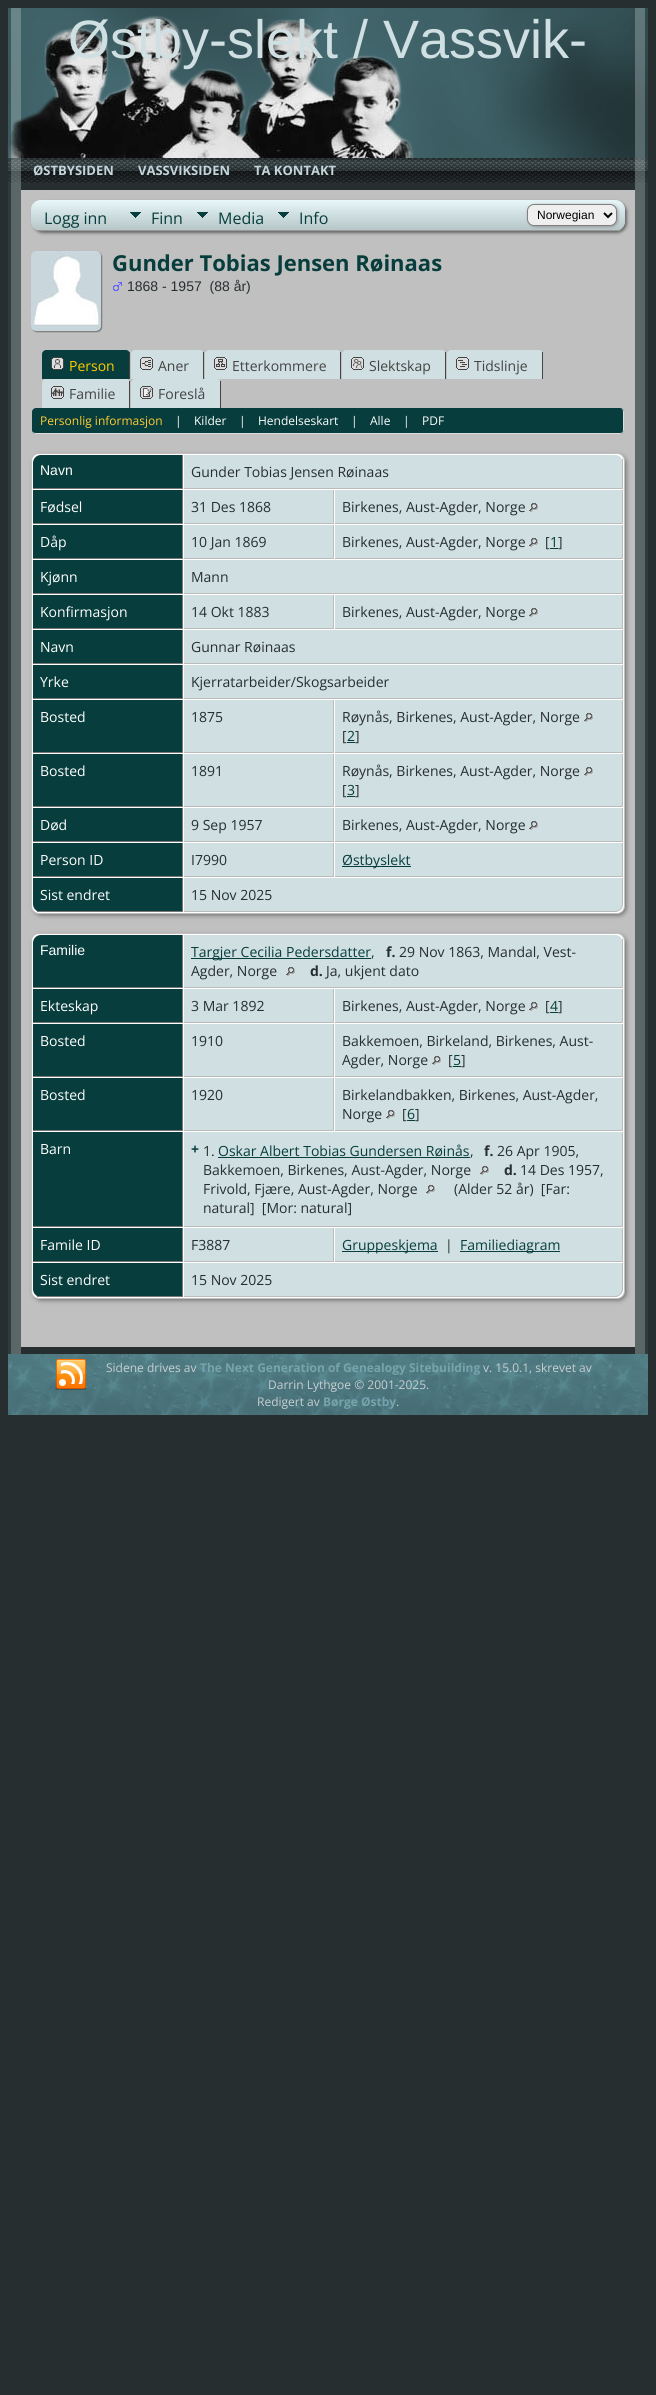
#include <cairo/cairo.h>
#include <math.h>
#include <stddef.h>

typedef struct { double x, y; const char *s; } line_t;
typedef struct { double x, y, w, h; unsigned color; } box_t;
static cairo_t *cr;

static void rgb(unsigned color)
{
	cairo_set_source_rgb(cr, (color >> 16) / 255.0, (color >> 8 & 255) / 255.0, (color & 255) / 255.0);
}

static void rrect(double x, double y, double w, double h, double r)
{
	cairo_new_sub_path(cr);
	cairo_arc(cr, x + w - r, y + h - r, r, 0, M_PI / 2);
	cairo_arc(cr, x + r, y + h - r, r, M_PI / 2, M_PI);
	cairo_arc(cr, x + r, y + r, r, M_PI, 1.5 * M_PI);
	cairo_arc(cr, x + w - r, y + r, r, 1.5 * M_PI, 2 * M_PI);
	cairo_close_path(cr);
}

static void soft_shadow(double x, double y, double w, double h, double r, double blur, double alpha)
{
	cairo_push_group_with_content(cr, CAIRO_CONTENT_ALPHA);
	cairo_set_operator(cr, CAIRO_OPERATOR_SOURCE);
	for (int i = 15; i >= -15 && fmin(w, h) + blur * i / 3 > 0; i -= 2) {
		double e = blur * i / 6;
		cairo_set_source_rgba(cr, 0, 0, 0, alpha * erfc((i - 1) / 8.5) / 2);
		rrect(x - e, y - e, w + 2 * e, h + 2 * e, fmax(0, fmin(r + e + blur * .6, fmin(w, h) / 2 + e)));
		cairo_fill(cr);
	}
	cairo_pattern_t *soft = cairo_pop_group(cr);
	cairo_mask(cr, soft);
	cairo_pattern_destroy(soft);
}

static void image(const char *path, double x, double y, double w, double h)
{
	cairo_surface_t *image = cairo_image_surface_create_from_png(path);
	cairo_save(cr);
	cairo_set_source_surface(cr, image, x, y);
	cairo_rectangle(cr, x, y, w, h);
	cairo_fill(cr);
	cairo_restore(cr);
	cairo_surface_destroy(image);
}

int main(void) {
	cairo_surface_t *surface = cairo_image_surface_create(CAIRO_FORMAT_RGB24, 656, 2395);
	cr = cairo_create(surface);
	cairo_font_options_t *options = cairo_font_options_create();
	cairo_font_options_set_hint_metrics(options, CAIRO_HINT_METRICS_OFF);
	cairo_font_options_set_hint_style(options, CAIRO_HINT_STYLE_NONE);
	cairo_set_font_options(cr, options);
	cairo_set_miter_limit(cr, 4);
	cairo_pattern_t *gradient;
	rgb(0x272e30);
	cairo_paint(cr);
	image("img/1.png", 8, 8, 640, 150);
	image("img/2.png", 8, 8, 13, 17);
	image("img/3.png", 21, 8, 614, 150);
	image("img/23.png", 8, 158, 640, 25);
	image("img/19.png", 8, 25, 13, 1312);
	image("img/4.png", 7, 15, 407, 143);
	image("img/5.png", 21, 158, 614, 25);
	rgb(0xc0c0c0);
	cairo_rectangle(cr, 21, 190, 614, 1157);
	cairo_fill(cr);
	rgb(0x666666);
	soft_shadow(33, 202, 594, 31, 10, 1.5, 1);
	rgb(0xcfdfe2);
	rrect(31, 200, 594, 31, 10);
	cairo_fill(cr);
	cairo_save(cr);
	rrect(31, 200, 594, 31, 10);
	cairo_clip(cr);
	gradient = cairo_pattern_create_linear(328, 200, 328, 230);
	cairo_pattern_add_color_stop_rgba(gradient, 0, 0.906, 0.969, 0.98, 1);
	cairo_pattern_add_color_stop_rgba(gradient, 1, 0.718, 0.78, 0.784, 1);
	cairo_set_source(cr, gradient);
	cairo_pattern_destroy(gradient);
	cairo_new_path(cr);
	cairo_move_to(cr, 41, 200);
	cairo_line_to(cr, 615, 200);
	cairo_curve_to(cr, 620.5, 200, 625, 204.5, 625, 210);
	cairo_line_to(cr, 625, 230);
	cairo_line_to(cr, 31, 230);
	cairo_line_to(cr, 31, 210);
	cairo_curve_to(cr, 31, 204.5, 35.5, 200, 41, 200);
	cairo_close_path(cr);
	cairo_fill(cr);
	cairo_restore(cr);
	rgb(0x999999);
	cairo_rectangle(cr, 36, 230, 584, 1);
	cairo_fill(cr);
	image("img/6.png", 121, 200, 67, 30);
	image("img/7.png", 188, 200, 81, 30);
	image("img/8.png", 269, 200, 64, 30);
	rgb(0x999999);
	soft_shadow(528, 205, 90, 22, 7, 1.5, 1);
	rgb(0xefefef);
	rrect(527.5, 204.5, 89, 21, 6.5);
	cairo_fill_preserve(cr);
	rgb(0x808080);
	cairo_set_line_width(cr, 1);
	cairo_stroke(cr);
	cairo_new_path(cr);
	cairo_move_to(cr, 604, 213);
	cairo_line_to(cr, 608, 217);
	cairo_line_to(cr, 612, 213);
	rgb(0x000000);
	cairo_set_line_width(cr, 2);
	cairo_stroke(cr);
	rgb(0x777777);
	soft_shadow(32, 252, 70, 80, 5, 0.5, 1);
	image("img/9.png", 31, 251, 70, 80);
	image("img/10.png", 113, 282, 9, 9);
	rgb(0x073d3c);
	cairo_new_path(cr);
	cairo_move_to(cr, 46, 350);
	cairo_line_to(cr, 126, 350);
	cairo_curve_to(cr, 128, 350, 130, 352, 130, 354);
	cairo_line_to(cr, 130, 379);
	cairo_line_to(cr, 42, 379);
	cairo_line_to(cr, 42, 354);
	cairo_curve_to(cr, 42, 352, 44, 350, 46, 350);
	cairo_close_path(cr);
	cairo_fill(cr);
	rgb(0x444444);
	cairo_rectangle(cr, 129, 352, 1, 27);
	cairo_fill(cr);
	image("img/11.png", 51, 357, 13, 13);
	rgb(0xcfdfe2);
	cairo_new_path(cr);
	cairo_move_to(cr, 135, 350);
	cairo_line_to(cr, 200, 350);
	cairo_curve_to(cr, 202, 350, 204, 352, 204, 354);
	cairo_line_to(cr, 204, 379);
	cairo_line_to(cr, 131, 379);
	cairo_line_to(cr, 131, 354);
	cairo_curve_to(cr, 131, 352, 133, 350, 135, 350);
	cairo_close_path(cr);
	cairo_fill(cr);
	rgb(0x444444);
	cairo_rectangle(cr, 203, 352, 1, 27);
	cairo_fill(cr);
	image("img/12.png", 140, 357, 13, 13);
	rgb(0xcfdfe2);
	cairo_new_path(cr);
	cairo_move_to(cr, 209, 350);
	cairo_line_to(cr, 337, 350);
	cairo_curve_to(cr, 339, 350, 341, 352, 341, 354);
	cairo_line_to(cr, 341, 379);
	cairo_line_to(cr, 205, 379);
	cairo_line_to(cr, 205, 354);
	cairo_curve_to(cr, 205, 352, 207, 350, 209, 350);
	cairo_close_path(cr);
	cairo_fill(cr);
	rgb(0x444444);
	cairo_rectangle(cr, 340, 352, 1, 27);
	cairo_fill(cr);
	image("img/13.png", 214, 357, 13, 13);
	rgb(0xcfdfe2);
	cairo_new_path(cr);
	cairo_move_to(cr, 346, 350);
	cairo_line_to(cr, 442, 350);
	cairo_curve_to(cr, 444, 350, 446, 352, 446, 354);
	cairo_line_to(cr, 446, 379);
	cairo_line_to(cr, 342, 379);
	cairo_line_to(cr, 342, 354);
	cairo_curve_to(cr, 342, 352, 344, 350, 346, 350);
	cairo_close_path(cr);
	cairo_fill(cr);
	rgb(0x444444);
	cairo_rectangle(cr, 445, 352, 1, 27);
	cairo_fill(cr);
	image("img/14.png", 351, 357, 13, 13);
	rgb(0xcfdfe2);
	cairo_new_path(cr);
	cairo_move_to(cr, 451, 350);
	cairo_line_to(cr, 539, 350);
	cairo_curve_to(cr, 541, 350, 543, 352, 543, 354);
	cairo_line_to(cr, 543, 379);
	cairo_line_to(cr, 447, 379);
	cairo_line_to(cr, 447, 354);
	cairo_curve_to(cr, 447, 352, 449, 350, 451, 350);
	cairo_close_path(cr);
	cairo_fill(cr);
	rgb(0x444444);
	cairo_rectangle(cr, 542, 352, 1, 27);
	cairo_fill(cr);
	image("img/15.png", 456, 357, 13, 13);
	rgb(0xcfdfe2);
	cairo_new_path(cr);
	cairo_move_to(cr, 46, 379);
	cairo_line_to(cr, 126, 379);
	cairo_curve_to(cr, 128, 379, 130, 381, 130, 383);
	cairo_line_to(cr, 130, 408);
	cairo_line_to(cr, 42, 408);
	cairo_line_to(cr, 42, 383);
	cairo_curve_to(cr, 42, 381, 44, 379, 46, 379);
	cairo_close_path(cr);
	cairo_fill(cr);
	rgb(0x444444);
	cairo_rectangle(cr, 129, 381, 1, 27);
	cairo_fill(cr);
	image("img/16.png", 51, 386, 13, 13);
	rgb(0xcfdfe2);
	cairo_new_path(cr);
	cairo_move_to(cr, 135, 379);
	cairo_line_to(cr, 217, 379);
	cairo_curve_to(cr, 219, 379, 221, 381, 221, 383);
	cairo_line_to(cr, 221, 408);
	cairo_line_to(cr, 131, 408);
	cairo_line_to(cr, 131, 383);
	cairo_curve_to(cr, 131, 381, 133, 379, 135, 379);
	cairo_close_path(cr);
	cairo_fill(cr);
	rgb(0x444444);
	cairo_rectangle(cr, 220, 381, 1, 27);
	cairo_fill(cr);
	image("img/17.png", 140, 386, 13, 13);
	rgb(0x073d3c);
	rrect(32, 408, 592, 26, 4);
	cairo_fill(cr);
	rgb(0xdddddd);
	cairo_set_fill_rule(cr, CAIRO_FILL_RULE_EVEN_ODD);
	cairo_new_path(cr);
	cairo_move_to(cr, 36, 408);
	cairo_line_to(cr, 620, 408);
	cairo_curve_to(cr, 622, 408, 624, 410, 624, 412);
	cairo_line_to(cr, 624, 430);
	cairo_curve_to(cr, 624, 432, 622, 434, 620, 434);
	cairo_line_to(cr, 36, 434);
	cairo_curve_to(cr, 34, 434, 32, 432, 32, 430);
	cairo_line_to(cr, 32, 412);
	cairo_curve_to(cr, 32, 410, 34, 408, 36, 408);
	cairo_close_path(cr);
	cairo_move_to(cr, 36, 408);
	cairo_line_to(cr, 620, 408);
	cairo_curve_to(cr, 622, 408, 623, 410, 623, 412);
	cairo_line_to(cr, 623, 430);
	cairo_curve_to(cr, 623, 432, 622, 433, 620, 433);
	cairo_line_to(cr, 36, 433);
	cairo_curve_to(cr, 34, 433, 32, 432, 32, 430);
	cairo_line_to(cr, 32, 412);
	cairo_curve_to(cr, 32, 410, 34, 408, 36, 408);
	cairo_close_path(cr);
	cairo_fill(cr);
	rgb(0x666666);
	soft_shadow(34, 456, 592, 459, 7, 2.5, 1);
	rgb(0xffffff);
	rrect(31.5, 453.5, 593, 460, 7.5);
	cairo_fill_preserve(cr);
	rgb(0xc0c0c0);
	cairo_set_line_width(cr, 1);
	cairo_stroke(cr);
	rgb(0x073d3c);
	cairo_new_path(cr);
	cairo_move_to(cr, 41, 455);
	cairo_line_to(cr, 183, 455);
	cairo_line_to(cr, 183, 489);
	cairo_line_to(cr, 33, 489);
	cairo_line_to(cr, 33, 463);
	cairo_curve_to(cr, 33, 458.5, 36.5, 455, 41, 455);
	cairo_close_path(cr);
	cairo_fill(cr);
	rgb(0x777777);
	cairo_rectangle(cr, 182, 455, 1, 34);
	cairo_fill(cr);
	cairo_rectangle(cr, 33, 488, 150, 1);
	cairo_fill(cr);
	rgb(0xcfdfe2);
	cairo_new_path(cr);
	cairo_move_to(cr, 184, 455);
	cairo_line_to(cr, 615, 455);
	cairo_curve_to(cr, 619.5, 455, 623, 458.5, 623, 463);
	cairo_line_to(cr, 623, 489);
	cairo_line_to(cr, 184, 489);
	cairo_close_path(cr);
	cairo_fill(cr);
	{
		static const box_t items[] = {
			{622, 459, 1, 30, 0xbbbbbb},
			{184, 488, 439, 1, 0xbbbbbb},
			{33, 490, 149, 33, 0x073d3c},
			{182, 490, 1, 34, 0x777777},
			{33, 523, 150, 1, 0x777777},
			{184, 490, 149, 33, 0xcfdfe2},
			{333, 490, 1, 34, 0xbbbbbb},
			{184, 523, 150, 1, 0xbbbbbb},
			{335, 490, 287, 33, 0xcfdfe2},
			{622, 490, 1, 34, 0xbbbbbb},
			{335, 523, 288, 1, 0xbbbbbb},
		};
		for (size_t i = 0; i < sizeof items / sizeof *items; i++) {
			rgb(items[i].color);
			cairo_rectangle(cr, items[i].x, items[i].y, items[i].w, items[i].h);
			cairo_fill(cr);
		}
	}
	image("img/18.png", 529, 503, 9, 9);
	{
		static const box_t items[] = {
			{33, 525, 149, 33, 0x073d3c},
			{182, 525, 1, 34, 0x777777},
			{33, 558, 150, 1, 0x777777},
			{184, 525, 149, 33, 0xcfdfe2},
			{333, 525, 1, 34, 0xbbbbbb},
			{184, 558, 150, 1, 0xbbbbbb},
			{335, 525, 287, 33, 0xcfdfe2},
			{622, 525, 1, 34, 0xbbbbbb},
			{335, 558, 288, 1, 0xbbbbbb},
		};
		for (size_t i = 0; i < sizeof items / sizeof *items; i++) {
			rgb(items[i].color);
			cairo_rectangle(cr, items[i].x, items[i].y, items[i].w, items[i].h);
			cairo_fill(cr);
		}
	}
	image("img/18.png", 529, 538, 9, 9);
	{
		static const box_t items[] = {
			{550, 548, 8, 1, 0x073d3c},
			{33, 560, 149, 33, 0x073d3c},
			{182, 560, 1, 34, 0x777777},
			{33, 593, 150, 1, 0x777777},
			{184, 560, 438, 33, 0xcfdfe2},
			{622, 560, 1, 34, 0xbbbbbb},
			{184, 593, 439, 1, 0xbbbbbb},
			{33, 595, 149, 33, 0x073d3c},
			{182, 595, 1, 34, 0x777777},
			{33, 628, 150, 1, 0x777777},
			{184, 595, 149, 33, 0xcfdfe2},
			{333, 595, 1, 34, 0xbbbbbb},
			{184, 628, 150, 1, 0xbbbbbb},
			{335, 595, 287, 33, 0xcfdfe2},
			{622, 595, 1, 34, 0xbbbbbb},
			{335, 628, 288, 1, 0xbbbbbb},
		};
		for (size_t i = 0; i < sizeof items / sizeof *items; i++) {
			rgb(items[i].color);
			cairo_rectangle(cr, items[i].x, items[i].y, items[i].w, items[i].h);
			cairo_fill(cr);
		}
	}
	image("img/18.png", 529, 608, 9, 9);
	{
		static const box_t items[] = {
			{33, 630, 149, 33, 0x073d3c},
			{182, 630, 1, 34, 0x777777},
			{33, 663, 150, 1, 0x777777},
			{184, 630, 438, 33, 0xcfdfe2},
			{622, 630, 1, 34, 0xbbbbbb},
			{184, 663, 439, 1, 0xbbbbbb},
			{33, 665, 149, 33, 0x073d3c},
			{182, 665, 1, 34, 0x777777},
			{33, 698, 150, 1, 0x777777},
			{184, 665, 438, 33, 0xcfdfe2},
			{622, 665, 1, 34, 0xbbbbbb},
			{184, 698, 439, 1, 0xbbbbbb},
			{33, 700, 149, 52, 0x073d3c},
			{182, 700, 1, 53, 0x777777},
			{33, 752, 150, 1, 0x777777},
			{184, 700, 149, 52, 0xcfdfe2},
			{333, 700, 1, 53, 0xbbbbbb},
			{184, 752, 150, 1, 0xbbbbbb},
			{335, 700, 287, 52, 0xcfdfe2},
			{622, 700, 1, 53, 0xbbbbbb},
			{335, 752, 288, 1, 0xbbbbbb},
		};
		for (size_t i = 0; i < sizeof items / sizeof *items; i++) {
			rgb(items[i].color);
			cairo_rectangle(cr, items[i].x, items[i].y, items[i].w, items[i].h);
			cairo_fill(cr);
		}
	}
	image("img/18.png", 584, 713, 9, 9);
	{
		static const box_t items[] = {
			{347, 742, 8, 1, 0x073d3c},
			{33, 754, 149, 52, 0x073d3c},
			{182, 754, 1, 53, 0x777777},
			{33, 806, 150, 1, 0x777777},
			{184, 754, 149, 52, 0xcfdfe2},
			{333, 754, 1, 53, 0xbbbbbb},
			{184, 806, 150, 1, 0xbbbbbb},
			{335, 754, 287, 52, 0xcfdfe2},
			{622, 754, 1, 53, 0xbbbbbb},
			{335, 806, 288, 1, 0xbbbbbb},
		};
		for (size_t i = 0; i < sizeof items / sizeof *items; i++) {
			rgb(items[i].color);
			cairo_rectangle(cr, items[i].x, items[i].y, items[i].w, items[i].h);
			cairo_fill(cr);
		}
	}
	image("img/18.png", 584, 767, 9, 9);
	{
		static const box_t items[] = {
			{347, 796, 8, 1, 0x073d3c},
			{33, 808, 149, 33, 0x073d3c},
			{182, 808, 1, 34, 0x777777},
			{33, 841, 150, 1, 0x777777},
			{184, 808, 149, 33, 0xcfdfe2},
			{333, 808, 1, 34, 0xbbbbbb},
			{184, 841, 150, 1, 0xbbbbbb},
			{335, 808, 287, 33, 0xcfdfe2},
			{622, 808, 1, 34, 0xbbbbbb},
			{335, 841, 288, 1, 0xbbbbbb},
		};
		for (size_t i = 0; i < sizeof items / sizeof *items; i++) {
			rgb(items[i].color);
			cairo_rectangle(cr, items[i].x, items[i].y, items[i].w, items[i].h);
			cairo_fill(cr);
		}
	}
	image("img/18.png", 529, 821, 9, 9);
	{
		static const box_t items[] = {
			{33, 843, 149, 33, 0x073d3c},
			{182, 843, 1, 34, 0x777777},
			{33, 876, 150, 1, 0x777777},
			{184, 843, 149, 33, 0xcfdfe2},
			{333, 843, 1, 34, 0xbbbbbb},
			{184, 876, 150, 1, 0xbbbbbb},
			{335, 843, 287, 33, 0xcfdfe2},
			{622, 843, 1, 34, 0xbbbbbb},
			{335, 876, 288, 1, 0xbbbbbb},
			{342, 866, 69, 1, 0x073d3c},
		};
		for (size_t i = 0; i < sizeof items / sizeof *items; i++) {
			rgb(items[i].color);
			cairo_rectangle(cr, items[i].x, items[i].y, items[i].w, items[i].h);
			cairo_fill(cr);
		}
	}
	cairo_new_path(cr);
	cairo_move_to(cr, 33, 878);
	cairo_line_to(cr, 183, 878);
	cairo_line_to(cr, 183, 912);
	cairo_line_to(cr, 41, 912);
	cairo_curve_to(cr, 36.5, 912, 33, 908.5, 33, 904);
	cairo_close_path(cr);
	cairo_fill(cr);
	rgb(0x777777);
	cairo_rectangle(cr, 182, 878, 1, 34);
	cairo_fill(cr);
	cairo_rectangle(cr, 37, 911, 146, 1);
	cairo_fill(cr);
	rgb(0xcfdfe2);
	cairo_new_path(cr);
	cairo_move_to(cr, 184, 878);
	cairo_line_to(cr, 623, 878);
	cairo_line_to(cr, 623, 904);
	cairo_curve_to(cr, 623, 908.5, 619.5, 912, 615, 912);
	cairo_line_to(cr, 184, 912);
	cairo_close_path(cr);
	cairo_fill(cr);
	rgb(0xbbbbbb);
	cairo_new_path(cr);
	cairo_move_to(cr, 184, 878);
	cairo_line_to(cr, 623, 878);
	cairo_line_to(cr, 623, 904);
	cairo_curve_to(cr, 623, 908, 619, 912, 615, 912);
	cairo_line_to(cr, 184, 912);
	cairo_close_path(cr);
	cairo_move_to(cr, 184, 878);
	cairo_line_to(cr, 622, 878);
	cairo_line_to(cr, 622, 904);
	cairo_curve_to(cr, 622, 908, 619, 911, 615, 911);
	cairo_line_to(cr, 184, 911);
	cairo_close_path(cr);
	cairo_fill(cr);
	rgb(0x666666);
	soft_shadow(34, 936, 592, 364, 7, 2.5, 1);
	rgb(0xffffff);
	rrect(31.5, 933.5, 593, 365, 7.5);
	cairo_fill_preserve(cr);
	rgb(0xc0c0c0);
	cairo_stroke(cr);
	rgb(0x073d3c);
	cairo_new_path(cr);
	cairo_move_to(cr, 41, 935);
	cairo_line_to(cr, 183, 935);
	cairo_line_to(cr, 183, 988);
	cairo_line_to(cr, 33, 988);
	cairo_line_to(cr, 33, 943);
	cairo_curve_to(cr, 33, 938.5, 36.5, 935, 41, 935);
	cairo_close_path(cr);
	cairo_fill(cr);
	rgb(0x777777);
	cairo_rectangle(cr, 182, 935, 1, 53);
	cairo_fill(cr);
	cairo_rectangle(cr, 33, 987, 150, 1);
	cairo_fill(cr);
	rgb(0xcfdfe2);
	cairo_new_path(cr);
	cairo_move_to(cr, 184, 935);
	cairo_line_to(cr, 615, 935);
	cairo_curve_to(cr, 619.5, 935, 623, 938.5, 623, 943);
	cairo_line_to(cr, 623, 988);
	cairo_line_to(cr, 184, 988);
	cairo_close_path(cr);
	cairo_fill(cr);
	{
		static const box_t items[] = {
			{622, 939, 1, 49, 0xbbbbbb},
			{184, 987, 439, 1, 0xbbbbbb},
			{191, 958, 180, 1, 0x073d3c},
		};
		for (size_t i = 0; i < sizeof items / sizeof *items; i++) {
			rgb(items[i].color);
			cairo_rectangle(cr, items[i].x, items[i].y, items[i].w, items[i].h);
			cairo_fill(cr);
		}
	}
	image("img/18.png", 286, 967, 9, 9);
	{
		static const box_t items[] = {
			{33, 989, 149, 33, 0x073d3c},
			{182, 989, 1, 34, 0x777777},
			{33, 1022, 150, 1, 0x777777},
			{184, 989, 149, 33, 0xcfdfe2},
			{333, 989, 1, 34, 0xbbbbbb},
			{184, 1022, 150, 1, 0xbbbbbb},
			{335, 989, 287, 33, 0xcfdfe2},
			{622, 989, 1, 34, 0xbbbbbb},
			{335, 1022, 288, 1, 0xbbbbbb},
		};
		for (size_t i = 0; i < sizeof items / sizeof *items; i++) {
			rgb(items[i].color);
			cairo_rectangle(cr, items[i].x, items[i].y, items[i].w, items[i].h);
			cairo_fill(cr);
		}
	}
	image("img/18.png", 529, 1002, 9, 9);
	{
		static const box_t items[] = {
			{550, 1012, 8, 1, 0x073d3c},
			{33, 1024, 149, 52, 0x073d3c},
			{182, 1024, 1, 53, 0x777777},
			{33, 1076, 150, 1, 0x777777},
			{184, 1024, 149, 52, 0xcfdfe2},
			{333, 1024, 1, 53, 0xbbbbbb},
			{184, 1076, 150, 1, 0xbbbbbb},
			{335, 1024, 287, 52, 0xcfdfe2},
			{622, 1024, 1, 53, 0xbbbbbb},
			{335, 1076, 288, 1, 0xbbbbbb},
		};
		for (size_t i = 0; i < sizeof items / sizeof *items; i++) {
			rgb(items[i].color);
			cairo_rectangle(cr, items[i].x, items[i].y, items[i].w, items[i].h);
			cairo_fill(cr);
		}
	}
	image("img/18.png", 432, 1056, 9, 9);
	{
		static const box_t items[] = {
			{453, 1066, 8, 1, 0x073d3c},
			{33, 1078, 149, 52, 0x073d3c},
			{182, 1078, 1, 53, 0x777777},
			{33, 1130, 150, 1, 0x777777},
			{184, 1078, 149, 52, 0xcfdfe2},
			{333, 1078, 1, 53, 0xbbbbbb},
			{184, 1130, 150, 1, 0xbbbbbb},
			{335, 1078, 287, 52, 0xcfdfe2},
			{622, 1078, 1, 53, 0xbbbbbb},
			{335, 1130, 288, 1, 0xbbbbbb},
		};
		for (size_t i = 0; i < sizeof items / sizeof *items; i++) {
			rgb(items[i].color);
			cairo_rectangle(cr, items[i].x, items[i].y, items[i].w, items[i].h);
			cairo_fill(cr);
		}
	}
	image("img/18.png", 386, 1110, 9, 9);
	{
		static const box_t items[] = {
			{407, 1120, 8, 1, 0x073d3c},
			{33, 1132, 149, 94, 0x073d3c},
			{182, 1132, 1, 95, 0x777777},
			{33, 1226, 150, 1, 0x777777},
			{184, 1132, 438, 94, 0xcfdfe2},
			{622, 1132, 1, 95, 0xbbbbbb},
			{184, 1226, 439, 1, 0xbbbbbb},
			{218, 1157, 252, 1, 0x073d3c},
		};
		for (size_t i = 0; i < sizeof items / sizeof *items; i++) {
			rgb(items[i].color);
			cairo_rectangle(cr, items[i].x, items[i].y, items[i].w, items[i].h);
			cairo_fill(cr);
		}
	}
	image("img/18.png", 480, 1166, 9, 9);
	image("img/18.png", 426, 1185, 9, 9);
	{
		static const box_t items[] = {
			{33, 1228, 149, 33, 0x073d3c},
			{182, 1228, 1, 34, 0x777777},
			{33, 1261, 150, 1, 0x777777},
			{184, 1228, 149, 33, 0xcfdfe2},
			{333, 1228, 1, 34, 0xbbbbbb},
			{184, 1261, 150, 1, 0xbbbbbb},
			{335, 1228, 287, 33, 0xcfdfe2},
			{622, 1228, 1, 34, 0xbbbbbb},
			{335, 1261, 288, 1, 0xbbbbbb},
			{342, 1251, 96, 1, 0x073d3c},
			{460, 1251, 100, 1, 0x073d3c},
		};
		for (size_t i = 0; i < sizeof items / sizeof *items; i++) {
			rgb(items[i].color);
			cairo_rectangle(cr, items[i].x, items[i].y, items[i].w, items[i].h);
			cairo_fill(cr);
		}
	}
	cairo_new_path(cr);
	cairo_move_to(cr, 33, 1263);
	cairo_line_to(cr, 183, 1263);
	cairo_line_to(cr, 183, 1297);
	cairo_line_to(cr, 41, 1297);
	cairo_curve_to(cr, 36.5, 1297, 33, 1293.5, 33, 1289);
	cairo_close_path(cr);
	cairo_fill(cr);
	rgb(0x777777);
	cairo_rectangle(cr, 182, 1263, 1, 34);
	cairo_fill(cr);
	cairo_rectangle(cr, 37, 1296, 146, 1);
	cairo_fill(cr);
	rgb(0xcfdfe2);
	cairo_new_path(cr);
	cairo_move_to(cr, 184, 1263);
	cairo_line_to(cr, 623, 1263);
	cairo_line_to(cr, 623, 1289);
	cairo_curve_to(cr, 623, 1293.5, 619.5, 1297, 615, 1297);
	cairo_line_to(cr, 184, 1297);
	cairo_close_path(cr);
	cairo_fill(cr);
	rgb(0xbbbbbb);
	cairo_new_path(cr);
	cairo_move_to(cr, 184, 1263);
	cairo_line_to(cr, 623, 1263);
	cairo_line_to(cr, 623, 1289);
	cairo_curve_to(cr, 623, 1293, 619, 1297, 615, 1297);
	cairo_line_to(cr, 184, 1297);
	cairo_close_path(cr);
	cairo_move_to(cr, 184, 1263);
	cairo_line_to(cr, 622, 1263);
	cairo_line_to(cr, 622, 1289);
	cairo_curve_to(cr, 622, 1293, 619, 1296, 615, 1296);
	cairo_line_to(cr, 184, 1296);
	cairo_close_path(cr);
	cairo_fill(cr);
	cairo_set_source_rgba(cr, 0.667, 0.725, 0.725, 0.4);
	cairo_rectangle(cr, 635, 8, 10, 17);
	cairo_fill(cr);
	image("img/20.png", 635, 25, 13, 1312);
	image("img/21.png", 8, 1337, 13, 17);
	image("img/22.png", 635, 1337, 13, 17);
	image("img/24.png", 8, 1354, 640, 11);
	image("img/26.png", 8, 1365, 640, 50);
	image("img/25.png", 55, 1359, 32, 31);
	cairo_select_font_face(cr, "Liberation Sans", CAIRO_FONT_SLANT_NORMAL, CAIRO_FONT_WEIGHT_NORMAL);
	cairo_set_font_size(cr, 54);
	rgb(0xcfdfe2);
	cairo_move_to(cr, 68, 58);
	cairo_show_text(cr, "Østby-slekt / Vassvik-");
	cairo_select_font_face(cr, "Open Sans", CAIRO_FONT_SLANT_NORMAL, CAIRO_FONT_WEIGHT_BOLD);
	cairo_set_font_size(cr, 13);
	rgb(0xc2d6db);
	{
		static const line_t items[] = {
			{33, 175, "ØSTBYSIDEN"},
			{138, 175, "VASSVIKSIDEN"},
			{254, 175, "TA KONTAKT"},
		};
		for (size_t i = 0; i < sizeof items / sizeof *items; i++) {
			cairo_move_to(cr, items[i].x, items[i].y);
			cairo_show_text(cr, items[i].s);
		}
	}
	cairo_select_font_face(cr, "Open Sans", CAIRO_FONT_SLANT_NORMAL, CAIRO_FONT_WEIGHT_NORMAL);
	cairo_set_font_size(cr, 16);
	rgb(0x073d3c);
	{
		static const line_t items[] = {
			{44, 224, "Logg inn"},
			{151, 224, "Finn"},
			{218, 224, "Media"},
			{299, 224, "Info"},
		};
		for (size_t i = 0; i < sizeof items / sizeof *items; i++) {
			cairo_move_to(cr, items[i].x, items[i].y);
			cairo_show_text(cr, items[i].s);
		}
	}
	cairo_select_font_face(cr, "Liberation Sans", CAIRO_FONT_SLANT_NORMAL, CAIRO_FONT_WEIGHT_NORMAL);
	cairo_set_font_size(cr, 12);
	rgb(0x000000);
	cairo_move_to(cr, 537, 219);
	cairo_show_text(cr, "Norwegian");
	cairo_select_font_face(cr, "Open Sans", CAIRO_FONT_SLANT_NORMAL, CAIRO_FONT_WEIGHT_BOLD);
	cairo_set_font_size(cr, 22);
	rgb(0x073d3c);
	cairo_move_to(cr, 112, 271);
	cairo_show_text(cr, "Gunder Tobias Jensen Røinaas");
	cairo_select_font_face(cr, "Liberation Sans", CAIRO_FONT_SLANT_NORMAL, CAIRO_FONT_WEIGHT_NORMAL);
	cairo_set_font_size(cr, 14);
	rgb(0x272e30);
	cairo_move_to(cr, 127, 291);
	cairo_show_text(cr, "1868 - 1957  (88 år)");
	cairo_select_font_face(cr, "Open Sans", CAIRO_FONT_SLANT_NORMAL, CAIRO_FONT_WEIGHT_NORMAL);
	rgb(0xffcc00);
	cairo_move_to(cr, 69, 371);
	cairo_show_text(cr, "Person");
	rgb(0x444444);
	{
		static const line_t items[] = {
			{158, 371, "Aner"},
			{232, 371, "Etterkommere"},
			{369, 371, "Slektskap"},
			{474, 371, "Tidslinje"},
			{69, 399, "Familie"},
			{158, 399, "Foreslå"},
		};
		for (size_t i = 0; i < sizeof items / sizeof *items; i++) {
			cairo_move_to(cr, items[i].x, items[i].y);
			cairo_show_text(cr, items[i].s);
		}
	}
	cairo_set_font_size(cr, 12);
	rgb(0xffcc33);
	cairo_move_to(cr, 40, 425);
	cairo_show_text(cr, "Personlig informasjon");
	rgb(0xffffff);
	{
		static const line_t items[] = {
			{175, 425, "|"},
			{194, 425, "Kilder"},
			{239, 425, "|"},
			{258, 425, "Hendelseskart"},
			{351, 425, "|"},
			{370, 425, "Alle"},
			{403, 425, "|"},
			{422, 425, "PDF"},
		};
		for (size_t i = 0; i < sizeof items / sizeof *items; i++) {
			cairo_move_to(cr, items[i].x, items[i].y);
			cairo_show_text(cr, items[i].s);
		}
	}
	cairo_select_font_face(cr, "Liberation Sans", CAIRO_FONT_SLANT_NORMAL, CAIRO_FONT_WEIGHT_NORMAL);
	cairo_set_font_size(cr, 14);
	cairo_move_to(cr, 40, 475);
	cairo_show_text(cr, "Navn");
	cairo_select_font_face(cr, "Open Sans", CAIRO_FONT_SLANT_NORMAL, CAIRO_FONT_WEIGHT_NORMAL);
	rgb(0x272e30);
	cairo_move_to(cr, 191, 477);
	cairo_show_text(cr, "Gunder Tobias Jensen Røinaas");
	rgb(0xffffff);
	cairo_move_to(cr, 40, 512);
	cairo_show_text(cr, "Fødsel");
	rgb(0x272e30);
	cairo_move_to(cr, 191, 512);
	cairo_show_text(cr, "31 Des 1868");
	cairo_move_to(cr, 342, 512);
	cairo_show_text(cr, "Birkenes, Aust-Agder, Norge");
	rgb(0xffffff);
	cairo_move_to(cr, 40, 547);
	cairo_show_text(cr, "Dåp");
	rgb(0x272e30);
	{
		static const line_t items[] = {
			{191, 547, "10 Jan 1869"},
			{342, 547, "Birkenes, Aust-Agder, Norge"},
			{545, 547, "["},
		};
		for (size_t i = 0; i < sizeof items / sizeof *items; i++) {
			cairo_move_to(cr, items[i].x, items[i].y);
			cairo_show_text(cr, items[i].s);
		}
	}
	rgb(0x073d3c);
	cairo_move_to(cr, 550, 547);
	cairo_show_text(cr, "1");
	rgb(0x272e30);
	cairo_move_to(cr, 558, 547);
	cairo_show_text(cr, "]");
	rgb(0xffffff);
	cairo_move_to(cr, 40, 582);
	cairo_show_text(cr, "Kjønn");
	rgb(0x272e30);
	cairo_move_to(cr, 191, 582);
	cairo_show_text(cr, "Mann");
	rgb(0xffffff);
	cairo_move_to(cr, 40, 617);
	cairo_show_text(cr, "Konfirmasjon");
	rgb(0x272e30);
	cairo_move_to(cr, 191, 617);
	cairo_show_text(cr, "14 Okt 1883");
	cairo_move_to(cr, 342, 617);
	cairo_show_text(cr, "Birkenes, Aust-Agder, Norge");
	rgb(0xffffff);
	cairo_move_to(cr, 40, 652);
	cairo_show_text(cr, "Navn");
	rgb(0x272e30);
	cairo_move_to(cr, 191, 652);
	cairo_show_text(cr, "Gunnar Røinaas");
	rgb(0xffffff);
	cairo_move_to(cr, 40, 687);
	cairo_show_text(cr, "Yrke");
	rgb(0x272e30);
	cairo_move_to(cr, 191, 687);
	cairo_show_text(cr, "Kjerratarbeider/Skogsarbeider");
	rgb(0xffffff);
	cairo_move_to(cr, 40, 722);
	cairo_show_text(cr, "Bosted");
	rgb(0x272e30);
	{
		static const line_t items[] = {
			{191, 722, "1875"},
			{342, 722, "Røynås, Birkenes, Aust-Agder, Norge"},
			{342, 741, "["},
		};
		for (size_t i = 0; i < sizeof items / sizeof *items; i++) {
			cairo_move_to(cr, items[i].x, items[i].y);
			cairo_show_text(cr, items[i].s);
		}
	}
	rgb(0x073d3c);
	cairo_move_to(cr, 347, 741);
	cairo_show_text(cr, "2");
	rgb(0x272e30);
	cairo_move_to(cr, 355, 741);
	cairo_show_text(cr, "]");
	rgb(0xffffff);
	cairo_move_to(cr, 40, 776);
	cairo_show_text(cr, "Bosted");
	rgb(0x272e30);
	{
		static const line_t items[] = {
			{191, 776, "1891"},
			{342, 776, "Røynås, Birkenes, Aust-Agder, Norge"},
			{342, 795, "["},
		};
		for (size_t i = 0; i < sizeof items / sizeof *items; i++) {
			cairo_move_to(cr, items[i].x, items[i].y);
			cairo_show_text(cr, items[i].s);
		}
	}
	rgb(0x073d3c);
	cairo_move_to(cr, 347, 795);
	cairo_show_text(cr, "3");
	rgb(0x272e30);
	cairo_move_to(cr, 355, 795);
	cairo_show_text(cr, "]");
	rgb(0xffffff);
	cairo_move_to(cr, 40, 830);
	cairo_show_text(cr, "Død");
	rgb(0x272e30);
	cairo_move_to(cr, 191, 830);
	cairo_show_text(cr, "9 Sep 1957");
	cairo_move_to(cr, 342, 830);
	cairo_show_text(cr, "Birkenes, Aust-Agder, Norge");
	rgb(0xffffff);
	cairo_move_to(cr, 40, 865);
	cairo_show_text(cr, "Person ID");
	rgb(0x272e30);
	cairo_move_to(cr, 191, 865);
	cairo_show_text(cr, "I7990");
	rgb(0x073d3c);
	cairo_move_to(cr, 342, 865);
	cairo_show_text(cr, "Østbyslekt");
	rgb(0xffffff);
	cairo_move_to(cr, 40, 900);
	cairo_show_text(cr, "Sist endret");
	rgb(0x272e30);
	cairo_move_to(cr, 191, 900);
	cairo_show_text(cr, "15 Nov 2025");
	cairo_select_font_face(cr, "Liberation Sans", CAIRO_FONT_SLANT_NORMAL, CAIRO_FONT_WEIGHT_NORMAL);
	rgb(0xffffff);
	cairo_move_to(cr, 40, 955);
	cairo_show_text(cr, "Familie");
	cairo_select_font_face(cr, "Open Sans", CAIRO_FONT_SLANT_NORMAL, CAIRO_FONT_WEIGHT_NORMAL);
	rgb(0x073d3c);
	cairo_move_to(cr, 191, 957);
	cairo_show_text(cr, "Targjer Cecilia Pedersdatter");
	rgb(0x272e30);
	cairo_move_to(cr, 371, 957);
	cairo_show_text(cr, ",");
	cairo_select_font_face(cr, "Open Sans", CAIRO_FONT_SLANT_NORMAL, CAIRO_FONT_WEIGHT_BOLD);
	cairo_move_to(cr, 386, 957);
	cairo_show_text(cr, "f.");
	cairo_select_font_face(cr, "Open Sans", CAIRO_FONT_SLANT_NORMAL, CAIRO_FONT_WEIGHT_NORMAL);
	cairo_move_to(cr, 399, 957);
	cairo_show_text(cr, "29 Nov 1863, Mandal, Vest-");
	cairo_move_to(cr, 191, 976);
	cairo_show_text(cr, "Agder, Norge");
	cairo_select_font_face(cr, "Open Sans", CAIRO_FONT_SLANT_NORMAL, CAIRO_FONT_WEIGHT_BOLD);
	cairo_move_to(cr, 310, 976);
	cairo_show_text(cr, "d.");
	cairo_select_font_face(cr, "Open Sans", CAIRO_FONT_SLANT_NORMAL, CAIRO_FONT_WEIGHT_NORMAL);
	cairo_move_to(cr, 326, 976);
	cairo_show_text(cr, "Ja, ukjent dato");
	rgb(0xffffff);
	cairo_move_to(cr, 40, 1011);
	cairo_show_text(cr, "Ekteskap");
	rgb(0x272e30);
	{
		static const line_t items[] = {
			{191, 1011, "3 Mar 1892"},
			{342, 1011, "Birkenes, Aust-Agder, Norge"},
			{545, 1011, "["},
		};
		for (size_t i = 0; i < sizeof items / sizeof *items; i++) {
			cairo_move_to(cr, items[i].x, items[i].y);
			cairo_show_text(cr, items[i].s);
		}
	}
	rgb(0x073d3c);
	cairo_move_to(cr, 550, 1011);
	cairo_show_text(cr, "4");
	rgb(0x272e30);
	cairo_move_to(cr, 558, 1011);
	cairo_show_text(cr, "]");
	rgb(0xffffff);
	cairo_move_to(cr, 40, 1046);
	cairo_show_text(cr, "Bosted");
	rgb(0x272e30);
	{
		static const line_t items[] = {
			{191, 1046, "1910"},
			{342, 1046, "Bakkemoen, Birkeland, Birkenes, Aust-"},
			{342, 1065, "Agder, Norge"},
			{448, 1065, "["},
		};
		for (size_t i = 0; i < sizeof items / sizeof *items; i++) {
			cairo_move_to(cr, items[i].x, items[i].y);
			cairo_show_text(cr, items[i].s);
		}
	}
	rgb(0x073d3c);
	cairo_move_to(cr, 453, 1065);
	cairo_show_text(cr, "5");
	rgb(0x272e30);
	cairo_move_to(cr, 461, 1065);
	cairo_show_text(cr, "]");
	rgb(0xffffff);
	cairo_move_to(cr, 40, 1100);
	cairo_show_text(cr, "Bosted");
	rgb(0x272e30);
	{
		static const line_t items[] = {
			{191, 1100, "1920"},
			{342, 1100, "Birkelandbakken, Birkenes, Aust-Agder,"},
			{342, 1119, "Norge"},
			{402, 1119, "["},
		};
		for (size_t i = 0; i < sizeof items / sizeof *items; i++) {
			cairo_move_to(cr, items[i].x, items[i].y);
			cairo_show_text(cr, items[i].s);
		}
	}
	rgb(0x073d3c);
	cairo_move_to(cr, 407, 1119);
	cairo_show_text(cr, "6");
	rgb(0x272e30);
	cairo_move_to(cr, 415, 1119);
	cairo_show_text(cr, "]");
	rgb(0xffffff);
	cairo_move_to(cr, 40, 1154);
	cairo_show_text(cr, "Barn");
	cairo_select_font_face(cr, "Open Sans", CAIRO_FONT_SLANT_NORMAL, CAIRO_FONT_WEIGHT_BOLD);
	rgb(0x073d3c);
	cairo_move_to(cr, 191, 1154);
	cairo_show_text(cr, "+");
	cairo_select_font_face(cr, "Open Sans", CAIRO_FONT_SLANT_NORMAL, CAIRO_FONT_WEIGHT_NORMAL);
	rgb(0x272e30);
	cairo_move_to(cr, 203, 1156);
	cairo_show_text(cr, "1.");
	rgb(0x073d3c);
	cairo_move_to(cr, 218, 1156);
	cairo_show_text(cr, "Oskar Albert Tobias Gundersen Røinås");
	rgb(0x272e30);
	cairo_move_to(cr, 470, 1156);
	cairo_show_text(cr, ",");
	cairo_select_font_face(cr, "Open Sans", CAIRO_FONT_SLANT_NORMAL, CAIRO_FONT_WEIGHT_BOLD);
	cairo_move_to(cr, 484, 1156);
	cairo_show_text(cr, "f.");
	cairo_select_font_face(cr, "Open Sans", CAIRO_FONT_SLANT_NORMAL, CAIRO_FONT_WEIGHT_NORMAL);
	cairo_move_to(cr, 497, 1156);
	cairo_show_text(cr, "26 Apr 1905,");
	cairo_move_to(cr, 203, 1175);
	cairo_show_text(cr, "Bakkemoen, Birkenes, Aust-Agder, Norge");
	cairo_select_font_face(cr, "Open Sans", CAIRO_FONT_SLANT_NORMAL, CAIRO_FONT_WEIGHT_BOLD);
	cairo_move_to(cr, 504, 1175);
	cairo_show_text(cr, "d.");
	cairo_select_font_face(cr, "Open Sans", CAIRO_FONT_SLANT_NORMAL, CAIRO_FONT_WEIGHT_NORMAL);
	{
		static const line_t items[] = {
			{520, 1175, "14 Des 1957,"},
			{203, 1194, "Frivold, Fjære, Aust-Agder, Norge"},
			{454, 1194, "(Alder 52 år)  [Far:"},
			{203, 1213, "natural]  [Mor: natural]"},
		};
		for (size_t i = 0; i < sizeof items / sizeof *items; i++) {
			cairo_move_to(cr, items[i].x, items[i].y);
			cairo_show_text(cr, items[i].s);
		}
	}
	rgb(0xffffff);
	cairo_move_to(cr, 40, 1250);
	cairo_show_text(cr, "Famile ID");
	rgb(0x272e30);
	cairo_move_to(cr, 191, 1250);
	cairo_show_text(cr, "F3887");
	rgb(0x073d3c);
	cairo_move_to(cr, 342, 1250);
	cairo_show_text(cr, "Gruppeskjema");
	rgb(0x272e30);
	cairo_move_to(cr, 445, 1250);
	cairo_show_text(cr, "|");
	rgb(0x073d3c);
	cairo_move_to(cr, 460, 1250);
	cairo_show_text(cr, "Familiediagram");
	rgb(0xffffff);
	cairo_move_to(cr, 40, 1285);
	cairo_show_text(cr, "Sist endret");
	rgb(0x272e30);
	cairo_move_to(cr, 191, 1285);
	cairo_show_text(cr, "15 Nov 2025");
	cairo_set_font_size(cr, 12);
	rgb(0xc7cfd1);
	cairo_move_to(cr, 106, 1372);
	cairo_show_text(cr, "Sidene drives av");
	cairo_select_font_face(cr, "Open Sans", CAIRO_FONT_SLANT_NORMAL, CAIRO_FONT_WEIGHT_BOLD);
	rgb(0x76a3ad);
	cairo_move_to(cr, 200, 1372);
	cairo_show_text(cr, "The Next Generation of Genealogy Sitebuilding");
	cairo_select_font_face(cr, "Open Sans", CAIRO_FONT_SLANT_NORMAL, CAIRO_FONT_WEIGHT_NORMAL);
	rgb(0xc7cfd1);
	{
		static const line_t items[] = {
			{483, 1372, "v. 15.0.1, skrevet av"},
			{268, 1389, "Darrin Lythgoe © 2001-2025."},
			{257, 1406, "Redigert av"},
		};
		for (size_t i = 0; i < sizeof items / sizeof *items; i++) {
			cairo_move_to(cr, items[i].x, items[i].y);
			cairo_show_text(cr, items[i].s);
		}
	}
	cairo_select_font_face(cr, "Open Sans", CAIRO_FONT_SLANT_NORMAL, CAIRO_FONT_WEIGHT_BOLD);
	rgb(0x76a3ad);
	cairo_move_to(cr, 323, 1406);
	cairo_show_text(cr, "Børge Østby");
	cairo_select_font_face(cr, "Open Sans", CAIRO_FONT_SLANT_NORMAL, CAIRO_FONT_WEIGHT_NORMAL);
	rgb(0xc7cfd1);
	cairo_move_to(cr, 396, 1406);
	cairo_show_text(cr, ".");
	cairo_surface_write_to_png(surface, "page.png");
	cairo_font_options_destroy(options);
	cairo_destroy(cr);
	cairo_surface_destroy(surface);
	return 0;
}
